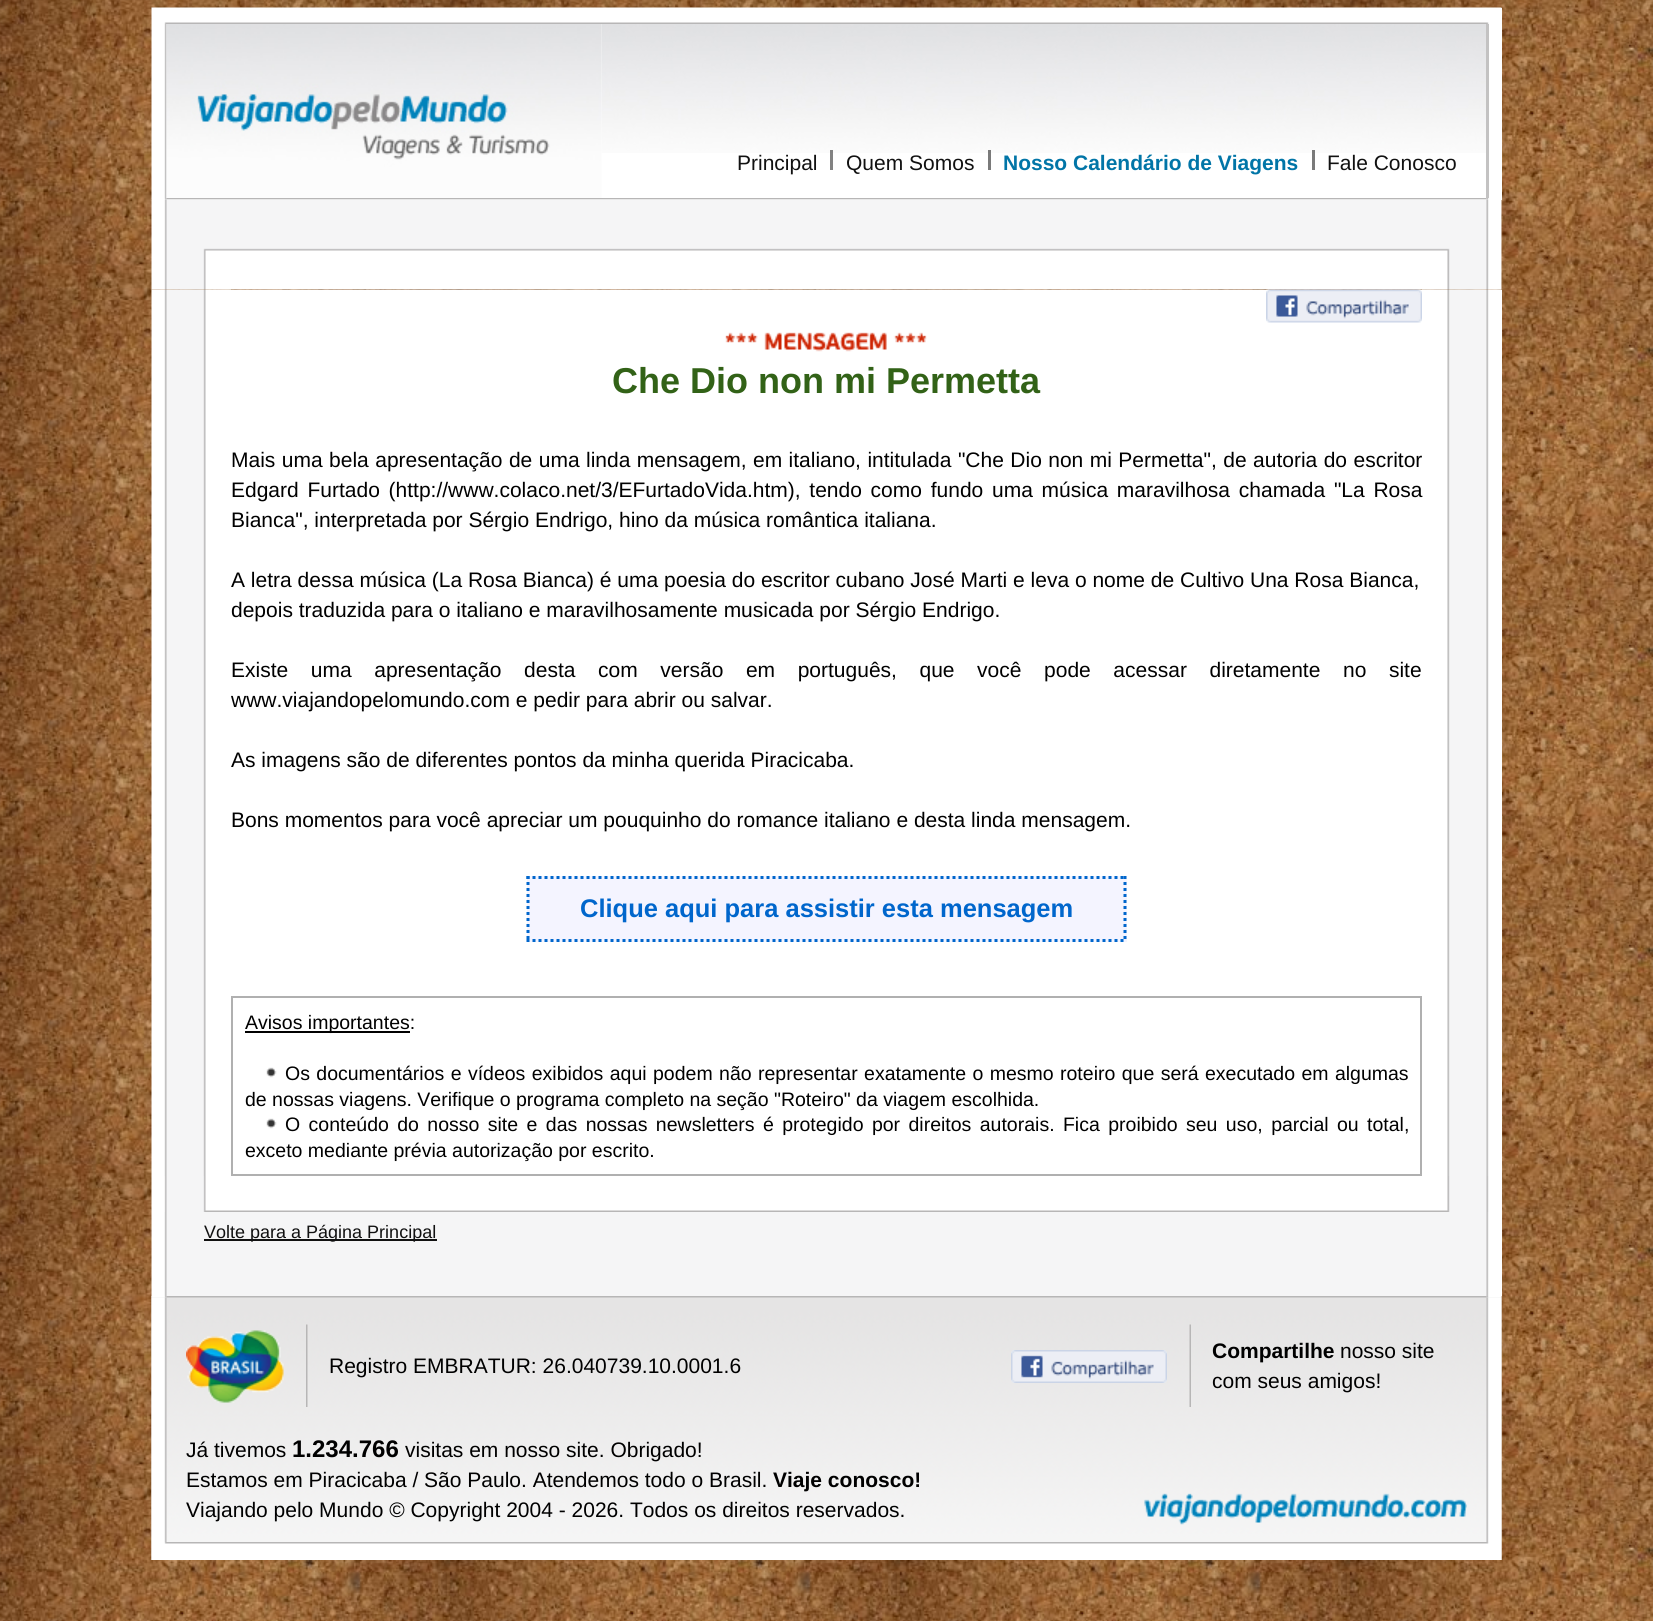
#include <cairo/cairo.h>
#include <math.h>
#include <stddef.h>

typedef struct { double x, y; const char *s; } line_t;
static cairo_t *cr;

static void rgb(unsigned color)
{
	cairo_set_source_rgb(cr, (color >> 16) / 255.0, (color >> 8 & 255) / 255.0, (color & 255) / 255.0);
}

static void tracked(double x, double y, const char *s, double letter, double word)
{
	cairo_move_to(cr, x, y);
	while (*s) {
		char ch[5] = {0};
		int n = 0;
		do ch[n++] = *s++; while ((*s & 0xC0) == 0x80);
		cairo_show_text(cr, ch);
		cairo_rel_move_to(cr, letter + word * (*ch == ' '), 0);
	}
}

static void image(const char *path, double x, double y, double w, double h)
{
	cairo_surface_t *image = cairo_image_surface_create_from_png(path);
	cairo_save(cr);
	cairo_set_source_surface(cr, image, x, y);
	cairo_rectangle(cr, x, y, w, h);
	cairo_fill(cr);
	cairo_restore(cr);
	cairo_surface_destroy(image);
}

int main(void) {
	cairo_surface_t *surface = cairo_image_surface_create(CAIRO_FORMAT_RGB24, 1653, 1621);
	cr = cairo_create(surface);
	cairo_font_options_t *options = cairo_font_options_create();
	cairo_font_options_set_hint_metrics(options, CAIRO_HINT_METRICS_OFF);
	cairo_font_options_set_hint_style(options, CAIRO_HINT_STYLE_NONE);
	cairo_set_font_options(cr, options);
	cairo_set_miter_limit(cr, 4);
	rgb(0xffffff);
	cairo_paint(cr);
	image("img/1.png", 0, 0, 1653, 1621);
	rgb(0xffffff);
	cairo_rectangle(cr, 152, 8, 1350, 192);
	cairo_fill(cr);
	image("img/2.png", 151, 7, 1351, 17);
	image("img/3.png", 151, 24, 16, 174);
	image("img/5.png", 601, 24, 885, 129);
	image("img/4.png", 166, 24, 436, 174);
	cairo_set_source_rgba(cr, 0.396, 0.396, 0.396, 0.81);
	cairo_rectangle(cr, 830, 150, 3, 20);
	cairo_fill(cr);
	cairo_set_source_rgba(cr, 0.4, 0.4, 0.4, 0.87);
	cairo_rectangle(cr, 988, 150, 3, 20);
	cairo_fill(cr);
	cairo_rectangle(cr, 1312, 150, 3, 20);
	cairo_fill(cr);
	rgb(0xc3c2c2);
	cairo_rectangle(cr, 1486, 24, 3, 174);
	cairo_fill(cr);
	image("img/6.png", 151, 198, 16, 2);
	image("img/7.png", 166, 198, 1321, 2);
	image("img/8.png", 1486, 198, 3, 2);
	image("img/9.png", 151, 199, 1351, 91);
	rgb(0xffffff);
	cairo_rectangle(cr, 231, 290, 1271, 886);
	cairo_fill(cr);
	image("img/10.png", 151, 289, 80, 887);
	image("img/11.png", 1266, 289, 156, 34);
	image("img/12.png", 725, 332, 202, 20);
	rgb(0xf4f4ff);
	cairo_rectangle(cr, 527, 876, 600, 66);
	cairo_fill(cr);
	cairo_new_path(cr);
	cairo_move_to(cr, 526.5, 877.5);
	cairo_line_to(cr, 1126.5, 877.5);
	rgb(0x0066cc);
	cairo_set_line_width(cr, 3);
	cairo_set_dash(cr, (double[]){3, 3}, 2, 0);
	cairo_stroke(cr);
	cairo_new_path(cr);
	cairo_move_to(cr, 1125, 876);
	cairo_line_to(cr, 1125, 942);
	cairo_stroke(cr);
	cairo_new_path(cr);
	cairo_move_to(cr, 526.5, 940.5);
	cairo_line_to(cr, 1126.5, 940.5);
	cairo_stroke(cr);
	cairo_new_path(cr);
	cairo_move_to(cr, 528, 876);
	cairo_line_to(cr, 528, 942);
	cairo_stroke(cr);
	cairo_rectangle(cr, 232, 997, 1189, 178);
	rgb(0xb0b0b0);
	cairo_set_line_width(cr, 2);
	cairo_set_dash(cr, NULL, 0, 0);
	cairo_stroke(cr);
	rgb(0x000000);
	cairo_rectangle(cr, 245, 1031, 165, 2);
	cairo_fill(cr);
	image("img/13.png", 266, 1067, 11, 11);
	image("img/13.png", 266, 1118, 11, 11);
	image("img/14.png", 1422, 289, 80, 887);
	rgb(0xffffff);
	cairo_rectangle(cr, 1489, 1176, 13, 120);
	cairo_fill(cr);
	image("img/15.png", 151, 1176, 1338, 36);
	image("img/16.png", 151, 1212, 53, 84);
	rgb(0xf5f5f6);
	cairo_rectangle(cr, 204, 1212, 1245, 84);
	cairo_fill(cr);
	rgb(0x111111);
	cairo_rectangle(cr, 204, 1239, 233, 2);
	cairo_fill(cr);
	image("img/17.png", 1449, 1212, 40, 84);
	image("img/18.png", 151, 1296, 1351, 264);
	image("img/19.png", 151, 1296, 16, 2);
	image("img/20.png", 166, 1296, 1321, 2);
	image("img/21.png", 1486, 1296, 16, 2);
	image("img/22.png", 151, 1297, 16, 110);
	image("img/23.png", 186, 1330, 98, 73);
	image("img/24.png", 306, 1324, 2, 83);
	image("img/25.png", 1011, 1350, 156, 33);
	image("img/26.png", 1189, 1324, 2, 83);
	image("img/27.png", 1486, 1297, 16, 110);
	image("img/28.png", 151, 1407, 16, 135);
	image("img/29.png", 1144, 1493, 323, 32);
	image("img/30.png", 1486, 1407, 16, 135);
	image("img/31.png", 151, 1542, 1351, 18);
	cairo_select_font_face(cr, "Liberation Sans", CAIRO_FONT_SLANT_NORMAL, CAIRO_FONT_WEIGHT_NORMAL);
	cairo_set_font_size(cr, 21);
	cairo_move_to(cr, 737, 170);
	cairo_show_text(cr, "Principal");
	cairo_move_to(cr, 846, 170);
	cairo_show_text(cr, "Quem Somos");
	cairo_select_font_face(cr, "Liberation Sans", CAIRO_FONT_SLANT_NORMAL, CAIRO_FONT_WEIGHT_BOLD);
	rgb(0x0175a7);
	cairo_move_to(cr, 1003, 170);
	cairo_show_text(cr, "Nosso Calendário de Viagens");
	cairo_select_font_face(cr, "Liberation Sans", CAIRO_FONT_SLANT_NORMAL, CAIRO_FONT_WEIGHT_NORMAL);
	rgb(0x111111);
	cairo_move_to(cr, 1327, 170);
	cairo_show_text(cr, "Fale Conosco");
	cairo_select_font_face(cr, "Liberation Sans", CAIRO_FONT_SLANT_NORMAL, CAIRO_FONT_WEIGHT_BOLD);
	cairo_set_font_size(cr, 36);
	rgb(0x326217);
	cairo_move_to(cr, 612, 393);
	cairo_show_text(cr, "Che Dio non mi Permetta");
	cairo_select_font_face(cr, "Liberation Sans", CAIRO_FONT_SLANT_NORMAL, CAIRO_FONT_WEIGHT_NORMAL);
	cairo_set_font_size(cr, 21);
	rgb(0x000000);
	tracked(231, 467, "Mais uma bela apresentação de uma linda mensagem, em italiano, intitulada \"Che Dio non mi Permetta\", de autoria do escritor", 0, 0.6);
	tracked(231, 497, "Edgard Furtado (http://www.colaco.net/3/EFurtadoVida.htm), tendo como fundo uma música maravilhosa chamada \"La Rosa", 0, 2.9);
	{
		static const line_t items[] = {
			{231, 527, "Bianca\", interpretada por Sérgio Endrigo, hino da música romântica italiana."},
			{231, 587, "A letra dessa música (La Rosa Bianca) é uma poesia do escritor cubano José Marti e leva o nome de Cultivo Una Rosa Bianca,"},
			{231, 617, "depois traduzida para o italiano e maravilhosamente musicada por Sérgio Endrigo."},
		};
		for (size_t i = 0; i < sizeof items / sizeof *items; i++) {
			cairo_move_to(cr, items[i].x, items[i].y);
			cairo_show_text(cr, items[i].s);
		}
	}
	tracked(231, 677, "Existe uma apresentação desta com versão em português, que você pode acessar diretamente no site", 0, 16.75);
	{
		static const line_t items[] = {
			{231, 707, "www.viajandopelomundo.com e pedir para abrir ou salvar."},
			{231, 767, "As imagens são de diferentes pontos da minha querida Piracicaba."},
			{231, 827, "Bons momentos para você apreciar um pouquinho do romance italiano e desta linda mensagem."},
		};
		for (size_t i = 0; i < sizeof items / sizeof *items; i++) {
			cairo_move_to(cr, items[i].x, items[i].y);
			cairo_show_text(cr, items[i].s);
		}
	}
	cairo_select_font_face(cr, "Liberation Sans", CAIRO_FONT_SLANT_NORMAL, CAIRO_FONT_WEIGHT_BOLD);
	cairo_set_font_size(cr, 25.5);
	rgb(0x0066cc);
	cairo_move_to(cr, 580, 917);
	cairo_show_text(cr, "Clique aqui para assistir esta mensagem");
	cairo_select_font_face(cr, "Liberation Sans", CAIRO_FONT_SLANT_NORMAL, CAIRO_FONT_WEIGHT_NORMAL);
	cairo_set_font_size(cr, 19.5);
	rgb(0x000000);
	cairo_move_to(cr, 245, 1029);
	cairo_show_text(cr, "Avisos importantes:");
	tracked(285, 1080, "Os documentários e vídeos exibidos aqui podem não representar exatamente o mesmo roteiro que será executado em algumas", 0, 1);
	cairo_move_to(cr, 245, 1106);
	cairo_show_text(cr, "de nossas viagens. Verifique o programa completo na seção \"Roteiro\" da viagem escolhida.");
	tracked(285, 1131, "O conteúdo do nosso site e das nossas newsletters é protegido por direitos autorais. Fica proibido seu uso, parcial ou total,", 0, 3);
	cairo_move_to(cr, 245, 1157);
	cairo_show_text(cr, "exceto mediante prévia autorização por escrito.");
	cairo_set_font_size(cr, 18);
	rgb(0x111111);
	cairo_move_to(cr, 204, 1238);
	cairo_show_text(cr, "Volte para a Página Principal");
	cairo_set_font_size(cr, 21);
	rgb(0x000000);
	cairo_move_to(cr, 329, 1373);
	cairo_show_text(cr, "Registro EMBRATUR: 26.040739.10.0001.6");
	cairo_select_font_face(cr, "Liberation Sans", CAIRO_FONT_SLANT_NORMAL, CAIRO_FONT_WEIGHT_BOLD);
	cairo_move_to(cr, 1212, 1358);
	cairo_show_text(cr, "Compartilhe");
	cairo_select_font_face(cr, "Liberation Sans", CAIRO_FONT_SLANT_NORMAL, CAIRO_FONT_WEIGHT_NORMAL);
	{
		static const line_t items[] = {
			{1340, 1358, "nosso site"},
			{1212, 1388, "com seus amigos!"},
			{186, 1457, "Já tivemos"},
		};
		for (size_t i = 0; i < sizeof items / sizeof *items; i++) {
			cairo_move_to(cr, items[i].x, items[i].y);
			cairo_show_text(cr, items[i].s);
		}
	}
	cairo_select_font_face(cr, "Liberation Sans", CAIRO_FONT_SLANT_NORMAL, CAIRO_FONT_WEIGHT_BOLD);
	cairo_set_font_size(cr, 24);
	cairo_move_to(cr, 292, 1457);
	cairo_show_text(cr, "1.234.766");
	cairo_select_font_face(cr, "Liberation Sans", CAIRO_FONT_SLANT_NORMAL, CAIRO_FONT_WEIGHT_NORMAL);
	cairo_set_font_size(cr, 21);
	cairo_move_to(cr, 405, 1457);
	cairo_show_text(cr, "visitas em nosso site. Obrigado!");
	cairo_move_to(cr, 186, 1487);
	cairo_show_text(cr, "Estamos em Piracicaba / São Paulo. Atendemos todo o Brasil.");
	cairo_select_font_face(cr, "Liberation Sans", CAIRO_FONT_SLANT_NORMAL, CAIRO_FONT_WEIGHT_BOLD);
	cairo_move_to(cr, 773, 1487);
	cairo_show_text(cr, "Viaje conosco!");
	cairo_select_font_face(cr, "Liberation Sans", CAIRO_FONT_SLANT_NORMAL, CAIRO_FONT_WEIGHT_NORMAL);
	cairo_move_to(cr, 186, 1517);
	cairo_show_text(cr, "Viajando pelo Mundo © Copyright 2004 - 2026. Todos os direitos reservados.");
	cairo_surface_write_to_png(surface, "page.png");
	cairo_font_options_destroy(options);
	cairo_destroy(cr);
	cairo_surface_destroy(surface);
	return 0;
}
